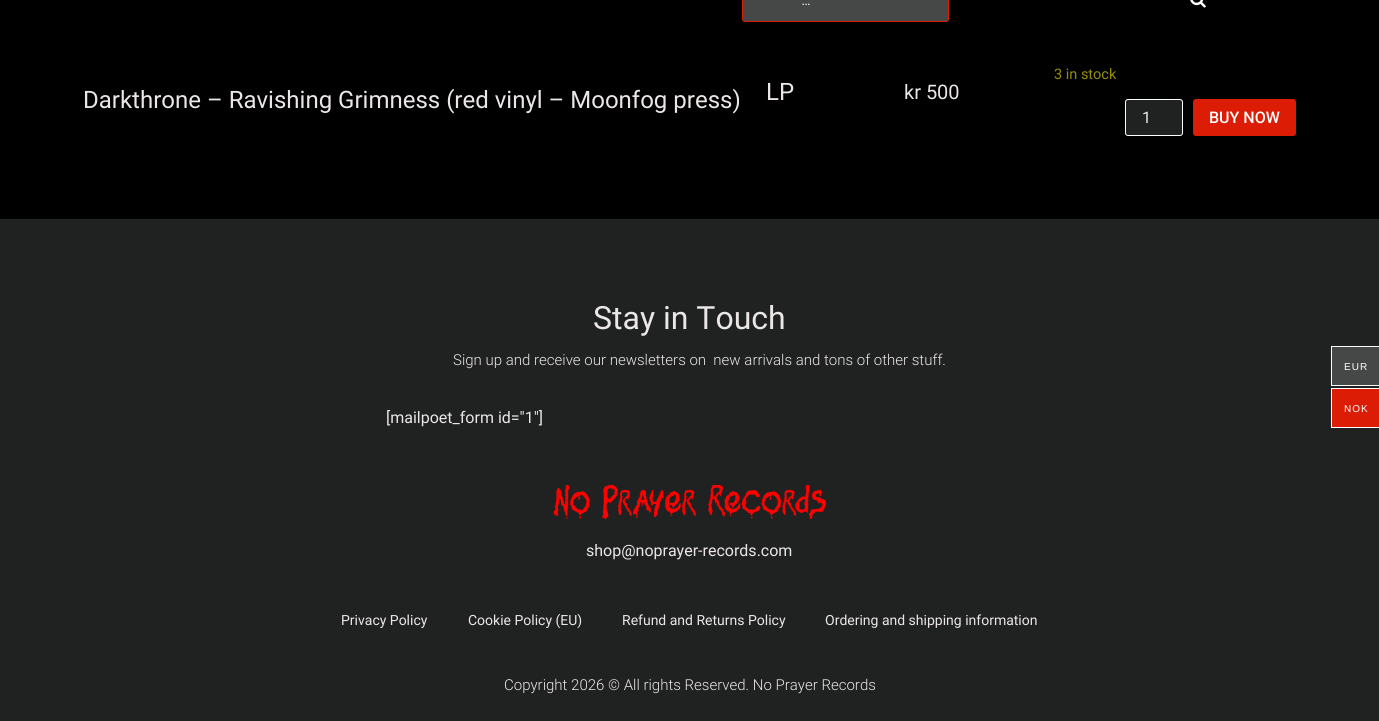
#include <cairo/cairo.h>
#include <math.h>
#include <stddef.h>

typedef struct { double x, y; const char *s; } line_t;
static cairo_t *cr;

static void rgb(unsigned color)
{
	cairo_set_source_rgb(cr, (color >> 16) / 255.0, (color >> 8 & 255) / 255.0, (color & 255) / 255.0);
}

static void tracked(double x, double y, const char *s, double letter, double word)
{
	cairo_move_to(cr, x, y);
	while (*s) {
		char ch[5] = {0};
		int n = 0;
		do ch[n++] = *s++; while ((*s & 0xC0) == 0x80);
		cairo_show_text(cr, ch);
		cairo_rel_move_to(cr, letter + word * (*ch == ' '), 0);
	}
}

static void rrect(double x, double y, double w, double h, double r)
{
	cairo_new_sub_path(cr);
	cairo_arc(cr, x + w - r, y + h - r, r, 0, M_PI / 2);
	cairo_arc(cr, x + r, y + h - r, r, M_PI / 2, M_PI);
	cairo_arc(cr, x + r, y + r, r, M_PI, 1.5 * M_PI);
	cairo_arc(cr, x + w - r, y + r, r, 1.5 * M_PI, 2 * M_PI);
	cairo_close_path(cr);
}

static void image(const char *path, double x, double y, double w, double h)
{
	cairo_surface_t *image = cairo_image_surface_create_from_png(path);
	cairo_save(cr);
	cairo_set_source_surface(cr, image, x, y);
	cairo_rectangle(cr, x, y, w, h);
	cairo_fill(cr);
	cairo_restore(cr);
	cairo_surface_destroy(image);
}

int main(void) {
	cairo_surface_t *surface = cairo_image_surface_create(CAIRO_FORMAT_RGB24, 1379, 721);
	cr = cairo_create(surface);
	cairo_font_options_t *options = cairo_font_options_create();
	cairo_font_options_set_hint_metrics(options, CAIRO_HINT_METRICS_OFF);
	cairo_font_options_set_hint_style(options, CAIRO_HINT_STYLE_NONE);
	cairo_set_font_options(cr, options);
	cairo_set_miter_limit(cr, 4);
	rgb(0x000000);
	cairo_paint(cr);
	rgb(0x464747);
	rrect(742.5, -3.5, 206, 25, 2.5);
	cairo_fill_preserve(cr);
	rgb(0xdd1c06);
	cairo_set_line_width(cr, 1);
	cairo_stroke(cr);
	image("img/1.png", 1190, 0, 16, 8);
	rgb(0x202121);
	rrect(1125.5, 99.5, 57, 36, 2.5);
	cairo_fill_preserve(cr);
	rgb(0xffffff);
	cairo_stroke(cr);
	rgb(0xdd1c06);
	rrect(1193, 99, 103, 37, 3);
	cairo_fill(cr);
	rgb(0x202121);
	cairo_rectangle(cr, 0, 219, 1379, 502);
	cairo_fill(cr);
	image("img/2.png", 554, 485, 272, 34);
	rgb(0x464747);
	cairo_rectangle(cr, 1331.5, 346.5, 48, 39);
	cairo_fill_preserve(cr);
	rgb(0xffffff);
	cairo_stroke(cr);
	rgb(0xdd1c06);
	cairo_rectangle(cr, 1331.5, 388.5, 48, 39);
	cairo_fill_preserve(cr);
	rgb(0xffffff);
	cairo_stroke(cr);
	cairo_select_font_face(cr, "Roboto", CAIRO_FONT_SLANT_ITALIC, CAIRO_FONT_WEIGHT_NORMAL);
	cairo_set_font_size(cr, 14);
	rgb(0xece7e7);
	cairo_move_to(cr, 802, 5);
	cairo_show_text(cr, "…");
	cairo_select_font_face(cr, "Roboto", CAIRO_FONT_SLANT_NORMAL, CAIRO_FONT_WEIGHT_NORMAL);
	cairo_set_font_size(cr, 24);
	cairo_move_to(cr, 83, 108);
	cairo_show_text(cr, "Darkthrone – Ravishing Grimness (red vinyl – Moonfog press)");
	cairo_move_to(cr, 766, 100);
	cairo_show_text(cr, "LP");
	cairo_set_font_size(cr, 20);
	cairo_move_to(cr, 904, 99);
	cairo_show_text(cr, "kr 500");
	cairo_set_font_size(cr, 14.5);
	rgb(0x958e09);
	cairo_move_to(cr, 1054, 79);
	cairo_show_text(cr, "3 in stock");
	cairo_set_font_size(cr, 16);
	rgb(0xece7e7);
	cairo_move_to(cr, 1142, 123);
	cairo_show_text(cr, "1");
	cairo_select_font_face(cr, "Roboto Medium", CAIRO_FONT_SLANT_NORMAL, CAIRO_FONT_WEIGHT_NORMAL);
	rgb(0xffffff);
	cairo_move_to(cr, 1209, 123);
	cairo_show_text(cr, "BUY NOW");
	cairo_select_font_face(cr, "Roboto", CAIRO_FONT_SLANT_NORMAL, CAIRO_FONT_WEIGHT_NORMAL);
	cairo_set_font_size(cr, 32);
	rgb(0xece7e7);
	cairo_move_to(cr, 593, 329);
	cairo_show_text(cr, "Stay in Touch");
	cairo_select_font_face(cr, "Roboto Light", CAIRO_FONT_SLANT_NORMAL, CAIRO_FONT_WEIGHT_NORMAL);
	cairo_set_font_size(cr, 15);
	cairo_move_to(cr, 453, 365);
	cairo_show_text(cr, "Sign up and receive our newsletters on  new arrivals and tons of other stuff.");
	cairo_select_font_face(cr, "Roboto", CAIRO_FONT_SLANT_NORMAL, CAIRO_FONT_WEIGHT_NORMAL);
	cairo_set_font_size(cr, 16);
	cairo_move_to(cr, 386, 423);
	cairo_show_text(cr, "[mailpoet_form id=\"1\"]");
	cairo_move_to(cr, 586, 556);
	cairo_show_text(cr, "shop@noprayer-records.com");
	cairo_set_font_size(cr, 14);
	{
		static const line_t items[] = {
			{341, 625, "Privacy Policy"},
			{468, 625, "Cookie Policy (EU)"},
			{622, 625, "Refund and Returns Policy"},
			{825, 625, "Ordering and shipping information"},
		};
		for (size_t i = 0; i < sizeof items / sizeof *items; i++) {
			cairo_move_to(cr, items[i].x, items[i].y);
			cairo_show_text(cr, items[i].s);
		}
	}
	cairo_select_font_face(cr, "Roboto Light", CAIRO_FONT_SLANT_NORMAL, CAIRO_FONT_WEIGHT_NORMAL);
	cairo_set_font_size(cr, 15);
	cairo_move_to(cr, 504, 690);
	cairo_show_text(cr, "Copyright 2026 © All rights Reserved. No Prayer Records");
	cairo_select_font_face(cr, "Liberation Sans", CAIRO_FONT_SLANT_NORMAL, CAIRO_FONT_WEIGHT_NORMAL);
	cairo_set_font_size(cr, 10);
	rgb(0xffffff);
	tracked(1344, 370, "EUR", 1, 0);
	tracked(1344, 412, "NOK", 1, 0);
	cairo_surface_write_to_png(surface, "page.png");
	cairo_font_options_destroy(options);
	cairo_destroy(cr);
	cairo_surface_destroy(surface);
	return 0;
}
